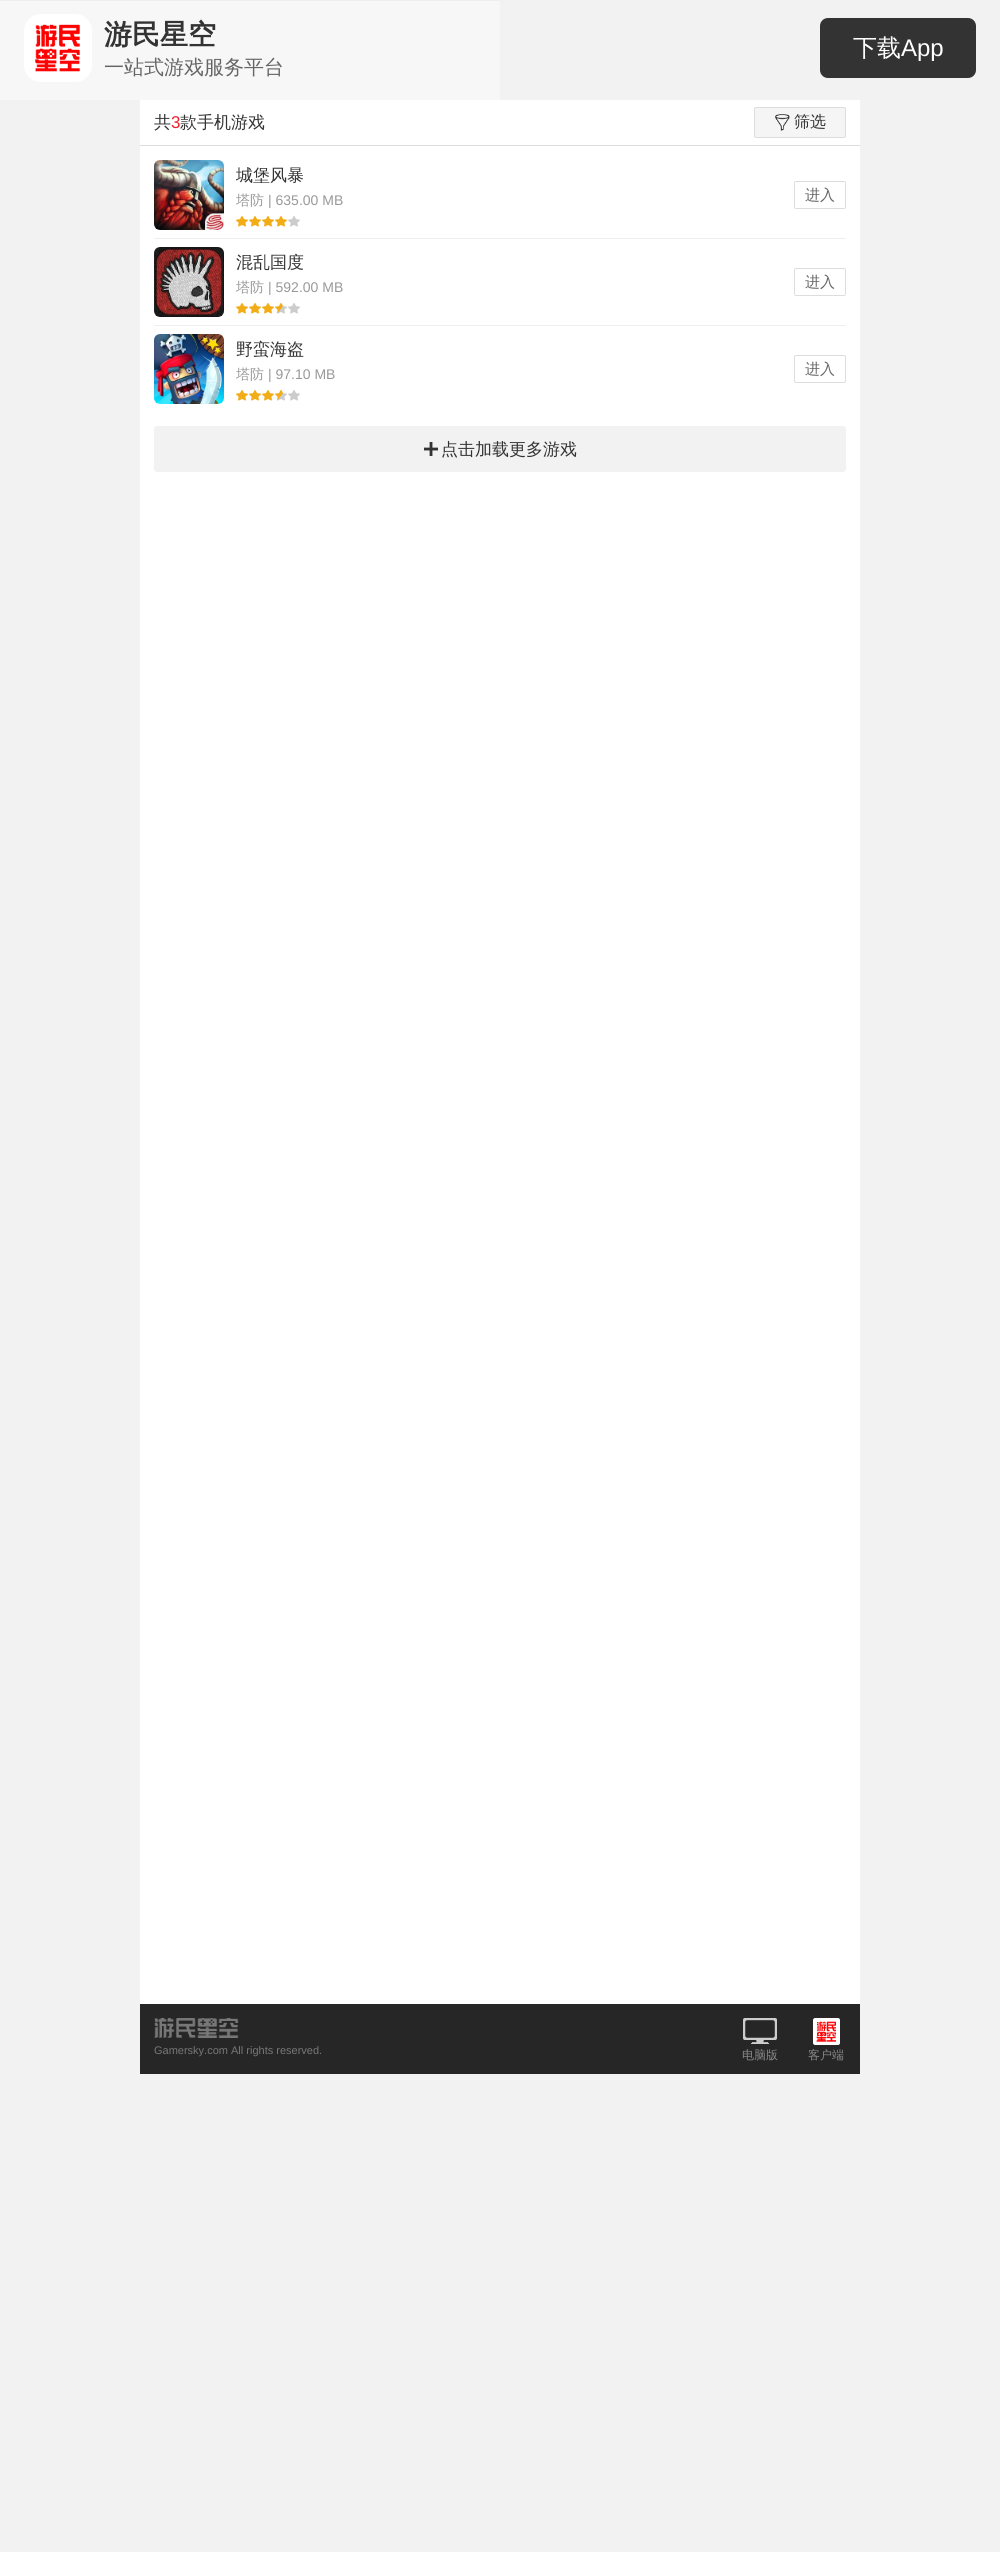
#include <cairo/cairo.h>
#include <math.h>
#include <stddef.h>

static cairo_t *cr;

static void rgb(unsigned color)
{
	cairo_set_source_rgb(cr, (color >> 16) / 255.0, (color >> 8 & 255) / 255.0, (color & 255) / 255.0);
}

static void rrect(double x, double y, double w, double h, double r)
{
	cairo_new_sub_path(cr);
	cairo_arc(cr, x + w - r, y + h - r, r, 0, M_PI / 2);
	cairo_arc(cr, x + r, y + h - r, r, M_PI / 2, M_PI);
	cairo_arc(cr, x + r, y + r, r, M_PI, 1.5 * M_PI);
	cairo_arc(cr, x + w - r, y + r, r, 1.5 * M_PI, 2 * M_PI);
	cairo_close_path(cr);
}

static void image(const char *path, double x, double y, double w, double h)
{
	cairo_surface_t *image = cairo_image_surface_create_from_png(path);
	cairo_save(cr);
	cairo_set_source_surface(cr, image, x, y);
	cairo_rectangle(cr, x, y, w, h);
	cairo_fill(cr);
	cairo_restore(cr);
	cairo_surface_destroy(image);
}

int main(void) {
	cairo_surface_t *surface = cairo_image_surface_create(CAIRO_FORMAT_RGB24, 1000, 2552);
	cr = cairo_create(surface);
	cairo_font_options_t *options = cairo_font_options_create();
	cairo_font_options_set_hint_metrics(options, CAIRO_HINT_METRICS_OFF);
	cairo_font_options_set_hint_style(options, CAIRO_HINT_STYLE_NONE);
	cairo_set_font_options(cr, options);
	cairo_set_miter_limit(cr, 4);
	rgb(0xf2f2f3);
	cairo_paint(cr);
	rgb(0xf7f7f7);
	cairo_rectangle(cr, 0, 1, 500, 99);
	cairo_fill(cr);
	rgb(0xeeeeee);
	cairo_rectangle(cr, 0, 0, 500, 1);
	cairo_fill(cr);
	image("img/1.png", 24, 14, 68, 68);
	rgb(0x333333);
	rrect(820, 18, 156, 60, 8);
	cairo_fill(cr);
	rgb(0xffffff);
	cairo_rectangle(cr, 140, 100, 720, 1904);
	cairo_fill(cr);
	rgb(0xdddddd);
	cairo_rectangle(cr, 140, 145, 720, 1);
	cairo_fill(cr);
	rgb(0xf5f5f5);
	rrect(754.5, 107.5, 91, 30, 1.5);
	cairo_fill_preserve(cr);
	rgb(0xdddddd);
	cairo_set_line_width(cr, 1);
	cairo_stroke(cr);
	image("img/2.png", 775, 114, 15, 17);
	image("img/3.png", 154, 160, 70, 70);
	image("img/4.png", 236, 216, 64, 11);
	rrect(794.5, 181.5, 51, 27, 1.5);
	cairo_stroke(cr);
	rgb(0xeeeeee);
	cairo_rectangle(cr, 154, 238, 692, 1);
	cairo_fill(cr);
	image("img/5.png", 154, 247, 70, 70);
	image("img/6.png", 236, 303, 64, 11);
	rrect(794.5, 268.5, 51, 27, 1.5);
	rgb(0xdddddd);
	cairo_stroke(cr);
	rgb(0xeeeeee);
	cairo_rectangle(cr, 154, 325, 692, 1);
	cairo_fill(cr);
	image("img/7.png", 154, 334, 70, 70);
	image("img/6.png", 236, 390, 64, 11);
	rrect(794.5, 355.5, 51, 27, 1.5);
	rgb(0xdddddd);
	cairo_stroke(cr);
	rgb(0xf2f2f3);
	rrect(154, 426, 692, 46, 3);
	cairo_fill(cr);
	image("img/8.png", 424, 442, 14, 14);
	rgb(0x262626);
	cairo_rectangle(cr, 140, 2004, 720, 70);
	cairo_fill(cr);
	image("img/9.png", 154, 2018, 85, 20);
	image("img/10.png", 743, 2018, 34, 26);
	image("img/11.png", 813, 2018, 27, 27);
	cairo_select_font_face(cr, "WenQuanYi Zen Hei", CAIRO_FONT_SLANT_NORMAL, CAIRO_FONT_WEIGHT_BOLD);
	cairo_set_font_size(cr, 28);
	rgb(0x333333);
	cairo_move_to(cr, 104, 44);
	cairo_show_text(cr, "游民星空");
	cairo_select_font_face(cr, "WenQuanYi Zen Hei Medium", CAIRO_FONT_SLANT_NORMAL, CAIRO_FONT_WEIGHT_NORMAL);
	cairo_set_font_size(cr, 20);
	rgb(0x666666);
	cairo_move_to(cr, 104, 74);
	cairo_show_text(cr, "一站式游戏服务平台");
	cairo_set_font_size(cr, 24);
	rgb(0xffffff);
	cairo_move_to(cr, 853, 56);
	cairo_show_text(cr, "下载");
	cairo_select_font_face(cr, "Liberation Sans", CAIRO_FONT_SLANT_NORMAL, CAIRO_FONT_WEIGHT_NORMAL);
	cairo_move_to(cr, 901, 56);
	cairo_show_text(cr, "App");
	cairo_select_font_face(cr, "WenQuanYi Zen Hei Medium", CAIRO_FONT_SLANT_NORMAL, CAIRO_FONT_WEIGHT_NORMAL);
	cairo_set_font_size(cr, 17);
	rgb(0x333333);
	cairo_move_to(cr, 154, 128);
	cairo_show_text(cr, "共");
	cairo_select_font_face(cr, "Liberation Sans", CAIRO_FONT_SLANT_NORMAL, CAIRO_FONT_WEIGHT_NORMAL);
	rgb(0xe7222a);
	cairo_move_to(cr, 171, 128);
	cairo_show_text(cr, "3");
	cairo_select_font_face(cr, "WenQuanYi Zen Hei Medium", CAIRO_FONT_SLANT_NORMAL, CAIRO_FONT_WEIGHT_NORMAL);
	rgb(0x333333);
	cairo_move_to(cr, 180, 128);
	cairo_show_text(cr, "款手机游戏");
	cairo_set_font_size(cr, 16);
	cairo_move_to(cr, 794, 127);
	cairo_show_text(cr, "筛选");
	cairo_set_font_size(cr, 17);
	cairo_move_to(cr, 236, 181);
	cairo_show_text(cr, "城堡风暴");
	cairo_set_font_size(cr, 14);
	rgb(0x999999);
	cairo_move_to(cr, 236, 205);
	cairo_show_text(cr, "塔防");
	cairo_select_font_face(cr, "Liberation Sans", CAIRO_FONT_SLANT_NORMAL, CAIRO_FONT_WEIGHT_NORMAL);
	cairo_move_to(cr, 268, 205);
	cairo_show_text(cr, "| 635.00 MB");
	cairo_select_font_face(cr, "WenQuanYi Zen Hei Medium", CAIRO_FONT_SLANT_NORMAL, CAIRO_FONT_WEIGHT_NORMAL);
	cairo_set_font_size(cr, 15);
	rgb(0x666666);
	cairo_move_to(cr, 805, 200);
	cairo_show_text(cr, "进入");
	cairo_set_font_size(cr, 17);
	rgb(0x333333);
	cairo_move_to(cr, 236, 268);
	cairo_show_text(cr, "混乱国度");
	cairo_set_font_size(cr, 14);
	rgb(0x999999);
	cairo_move_to(cr, 236, 292);
	cairo_show_text(cr, "塔防");
	cairo_select_font_face(cr, "Liberation Sans", CAIRO_FONT_SLANT_NORMAL, CAIRO_FONT_WEIGHT_NORMAL);
	cairo_move_to(cr, 268, 292);
	cairo_show_text(cr, "| 592.00 MB");
	cairo_select_font_face(cr, "WenQuanYi Zen Hei Medium", CAIRO_FONT_SLANT_NORMAL, CAIRO_FONT_WEIGHT_NORMAL);
	cairo_set_font_size(cr, 15);
	rgb(0x666666);
	cairo_move_to(cr, 805, 287);
	cairo_show_text(cr, "进入");
	cairo_set_font_size(cr, 17);
	rgb(0x333333);
	cairo_move_to(cr, 236, 355);
	cairo_show_text(cr, "野蛮海盗");
	cairo_set_font_size(cr, 14);
	rgb(0x999999);
	cairo_move_to(cr, 236, 379);
	cairo_show_text(cr, "塔防");
	cairo_select_font_face(cr, "Liberation Sans", CAIRO_FONT_SLANT_NORMAL, CAIRO_FONT_WEIGHT_NORMAL);
	cairo_move_to(cr, 268, 379);
	cairo_show_text(cr, "| 97.10 MB");
	cairo_select_font_face(cr, "WenQuanYi Zen Hei Medium", CAIRO_FONT_SLANT_NORMAL, CAIRO_FONT_WEIGHT_NORMAL);
	cairo_set_font_size(cr, 15);
	rgb(0x666666);
	cairo_move_to(cr, 805, 374);
	cairo_show_text(cr, "进入");
	cairo_set_font_size(cr, 17);
	rgb(0x333333);
	cairo_move_to(cr, 441, 455);
	cairo_show_text(cr, "点击加载更多游戏");
	cairo_select_font_face(cr, "Liberation Sans", CAIRO_FONT_SLANT_NORMAL, CAIRO_FONT_WEIGHT_NORMAL);
	cairo_set_font_size(cr, 11);
	rgb(0x777777);
	cairo_move_to(cr, 154, 2054);
	cairo_show_text(cr, "Gamersky.com All rights reserved.");
	cairo_select_font_face(cr, "WenQuanYi Zen Hei Medium", CAIRO_FONT_SLANT_NORMAL, CAIRO_FONT_WEIGHT_NORMAL);
	cairo_set_font_size(cr, 12);
	rgb(0x888888);
	cairo_move_to(cr, 742, 2059);
	cairo_show_text(cr, "电脑版");
	cairo_move_to(cr, 808, 2059);
	cairo_show_text(cr, "客户端");
	cairo_surface_write_to_png(surface, "page.png");
	cairo_font_options_destroy(options);
	cairo_destroy(cr);
	cairo_surface_destroy(surface);
	return 0;
}
